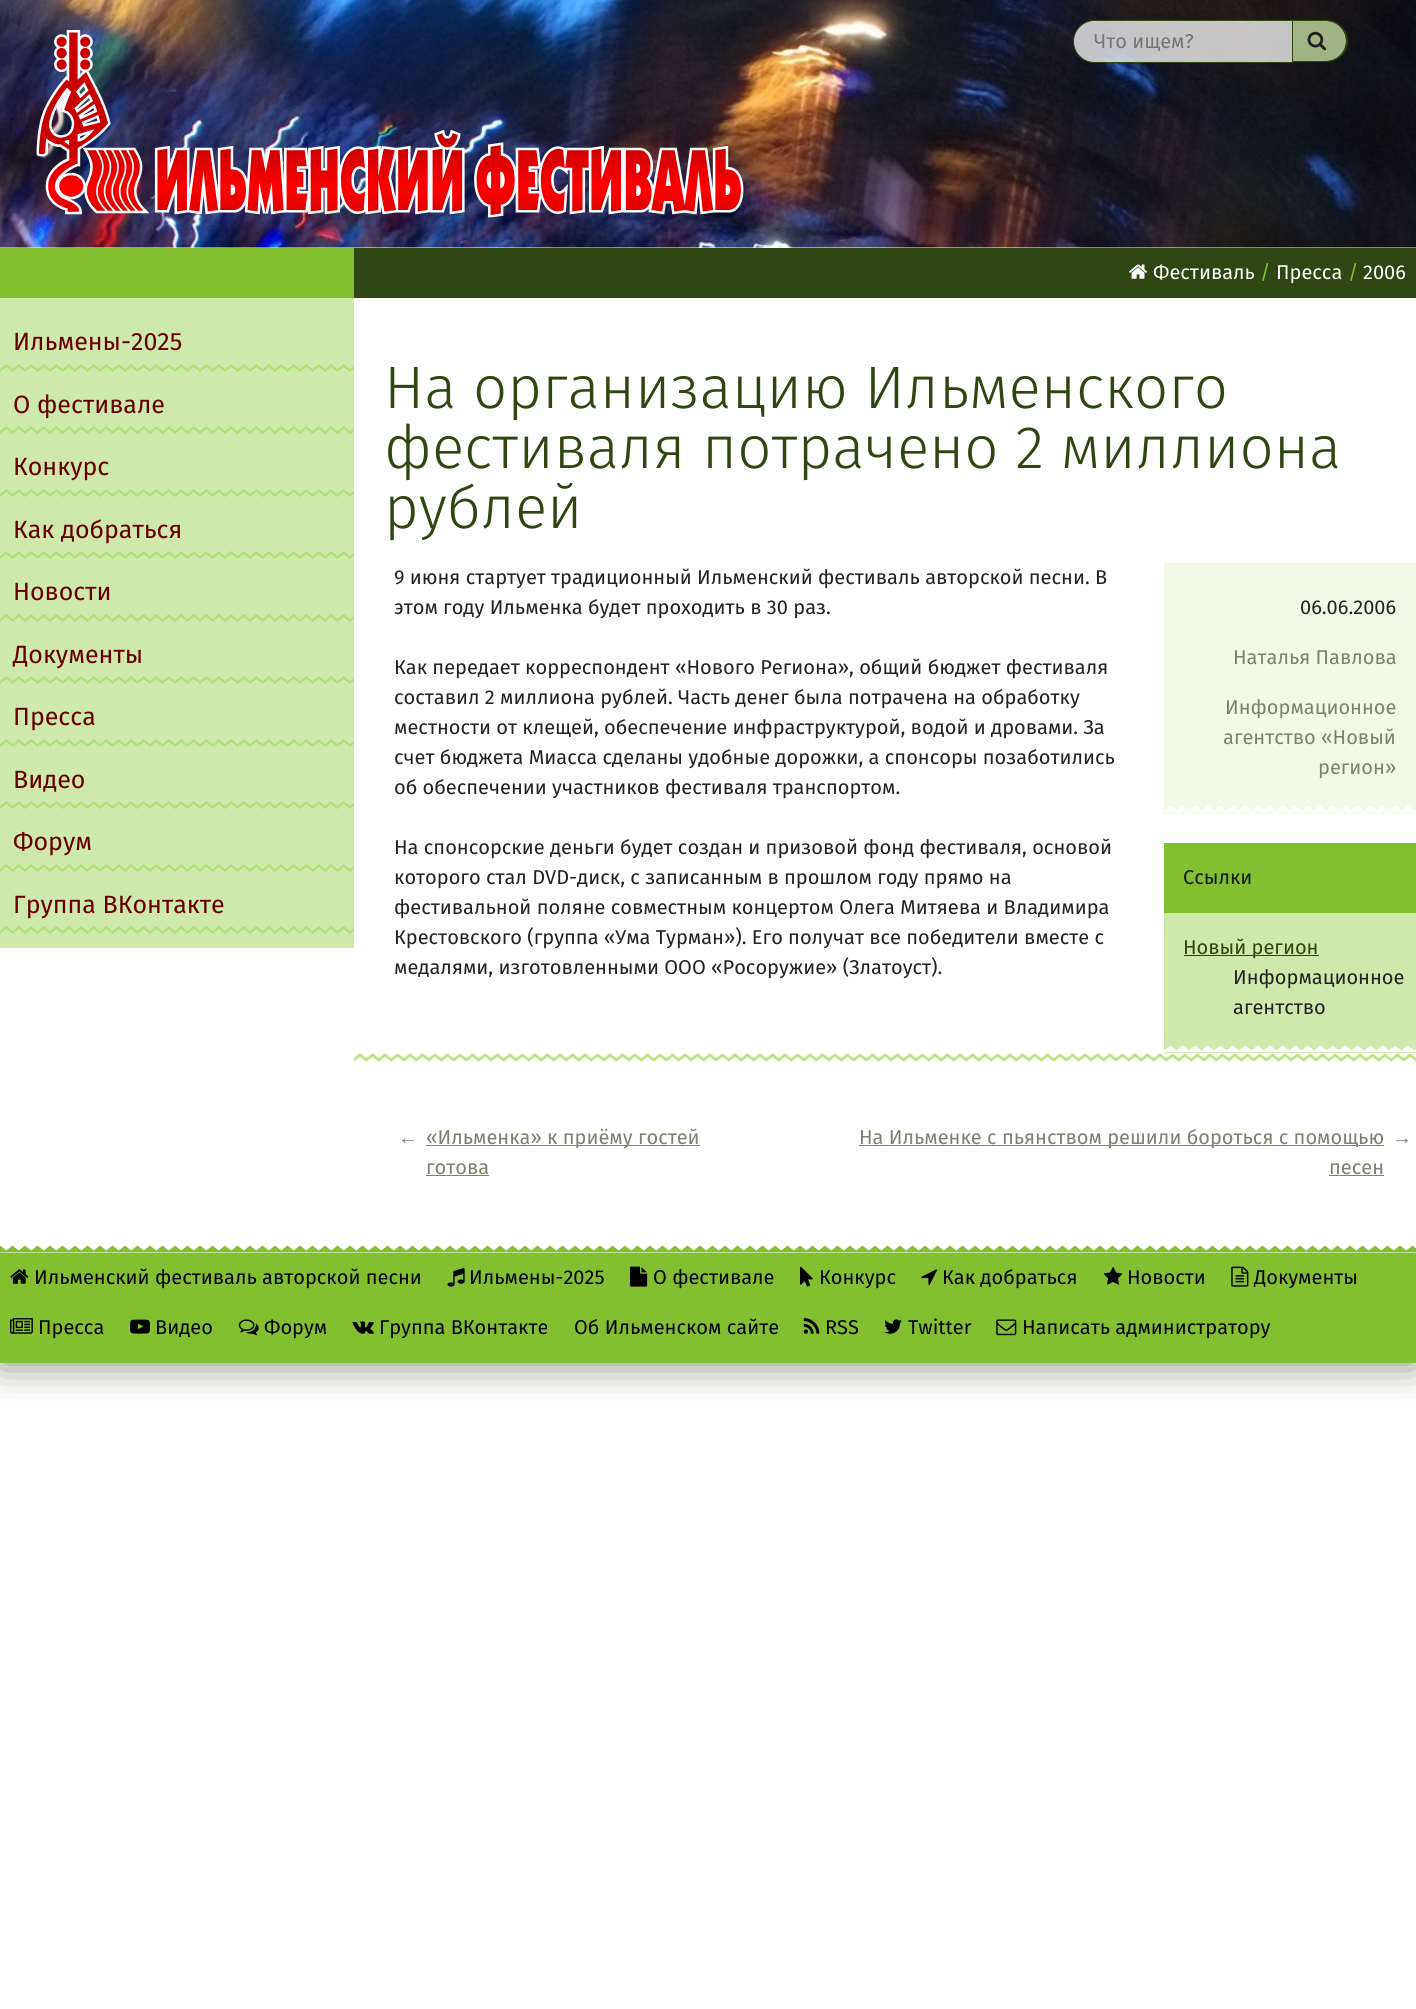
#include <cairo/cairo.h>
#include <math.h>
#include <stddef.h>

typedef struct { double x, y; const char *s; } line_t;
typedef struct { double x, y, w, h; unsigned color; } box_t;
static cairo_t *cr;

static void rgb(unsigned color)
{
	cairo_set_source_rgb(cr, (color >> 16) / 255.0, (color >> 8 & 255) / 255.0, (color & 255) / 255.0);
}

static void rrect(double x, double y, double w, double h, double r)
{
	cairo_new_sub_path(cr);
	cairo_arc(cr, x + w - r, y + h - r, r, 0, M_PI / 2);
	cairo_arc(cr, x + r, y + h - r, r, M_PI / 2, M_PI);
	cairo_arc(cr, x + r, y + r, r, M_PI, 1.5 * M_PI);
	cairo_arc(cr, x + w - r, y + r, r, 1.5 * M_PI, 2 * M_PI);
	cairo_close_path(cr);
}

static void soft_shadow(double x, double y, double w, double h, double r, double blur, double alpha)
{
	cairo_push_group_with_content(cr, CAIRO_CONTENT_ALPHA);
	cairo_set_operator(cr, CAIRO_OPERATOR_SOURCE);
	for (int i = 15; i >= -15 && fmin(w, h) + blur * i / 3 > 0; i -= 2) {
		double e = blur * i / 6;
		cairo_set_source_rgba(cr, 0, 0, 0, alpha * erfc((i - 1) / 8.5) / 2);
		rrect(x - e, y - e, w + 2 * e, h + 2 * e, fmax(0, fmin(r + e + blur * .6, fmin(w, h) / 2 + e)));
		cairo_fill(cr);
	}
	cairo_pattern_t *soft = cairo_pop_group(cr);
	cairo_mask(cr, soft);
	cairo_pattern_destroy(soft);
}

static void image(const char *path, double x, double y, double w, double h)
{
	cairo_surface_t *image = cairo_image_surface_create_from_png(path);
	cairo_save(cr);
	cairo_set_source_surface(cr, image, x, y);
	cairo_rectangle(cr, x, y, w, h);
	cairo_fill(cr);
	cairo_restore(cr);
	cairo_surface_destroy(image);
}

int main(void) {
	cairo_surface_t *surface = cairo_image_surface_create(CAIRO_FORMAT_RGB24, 1416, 2009);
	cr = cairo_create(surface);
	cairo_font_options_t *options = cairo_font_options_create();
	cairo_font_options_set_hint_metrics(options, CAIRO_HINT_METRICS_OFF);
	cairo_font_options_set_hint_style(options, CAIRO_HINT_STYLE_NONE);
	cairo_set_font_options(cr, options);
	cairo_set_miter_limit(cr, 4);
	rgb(0xffffff);
	cairo_paint(cr);
	cairo_save(cr);
	cairo_rectangle(cr, 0, 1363, 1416, 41);
	cairo_clip(cr);
	rgb(0x7a836d);
	soft_shadow(0, 0, 1416, 1363, 0, 20, 1);
	cairo_restore(cr);
	image("img/1.png", 0, 0, 1416, 248);
	image("img/2.png", 36, 30, 708, 188);
	cairo_set_source_rgba(cr, 1, 1, 1, 0.75);
	cairo_new_path(cr);
	cairo_move_to(cr, 1094.5, 20.5);
	cairo_line_to(cr, 1292.5, 20.5);
	cairo_line_to(cr, 1292.5, 62.5);
	cairo_line_to(cr, 1094.5, 62.5);
	cairo_curve_to(cr, 1083, 62.5, 1073.5, 53, 1073.5, 41.5);
	cairo_curve_to(cr, 1073.5, 30, 1083, 20.5, 1094.5, 20.5);
	cairo_close_path(cr);
	cairo_fill_preserve(cr);
	rgb(0x2f4512);
	cairo_set_line_width(cr, 1);
	cairo_stroke(cr);
	cairo_set_source_rgba(cr, 0.808, 0.914, 0.667, 0.75);
	cairo_new_path(cr);
	cairo_move_to(cr, 1293, 21);
	cairo_line_to(cr, 1326, 21);
	cairo_curve_to(cr, 1337, 21, 1346, 30, 1346, 41);
	cairo_curve_to(cr, 1346, 52, 1337, 61, 1326, 61);
	cairo_line_to(cr, 1293, 61);
	cairo_close_path(cr);
	cairo_fill(cr);
	rgb(0x2f4512);
	cairo_set_fill_rule(cr, CAIRO_FILL_RULE_EVEN_ODD);
	cairo_new_path(cr);
	cairo_move_to(cr, 1292, 20);
	cairo_line_to(cr, 1326, 20);
	cairo_curve_to(cr, 1338, 20, 1348, 30, 1348, 41);
	cairo_curve_to(cr, 1348, 53, 1338, 62, 1326, 62);
	cairo_line_to(cr, 1292, 62);
	cairo_close_path(cr);
	cairo_move_to(cr, 1292, 21);
	cairo_line_to(cr, 1326, 21);
	cairo_curve_to(cr, 1337, 21, 1346, 30, 1346, 41);
	cairo_curve_to(cr, 1346, 52, 1337, 61, 1326, 61);
	cairo_line_to(cr, 1292, 61);
	cairo_close_path(cr);
	cairo_fill(cr);
	image("img/3.png", 1307, 31, 19, 20);
	rgb(0xcee9aa);
	cairo_rectangle(cr, 0, 298, 354, 650);
	cairo_fill(cr);
	rgb(0x83bf31);
	cairo_rectangle(cr, 0, 248, 354, 50);
	cairo_fill(cr);
	image("img/4.png", 0, 364, 354, 8);
	image("img/4.png", 0, 426, 354, 8);
	image("img/4.png", 0, 489, 354, 8);
	image("img/4.png", 0, 551, 354, 8);
	image("img/4.png", 0, 614, 354, 8);
	image("img/4.png", 0, 676, 354, 8);
	image("img/4.png", 0, 739, 354, 8);
	image("img/4.png", 0, 801, 354, 8);
	image("img/4.png", 0, 864, 354, 8);
	image("img/4.png", 0, 926, 354, 8);
	rgb(0x2f4512);
	cairo_rectangle(cr, 354, 248, 1062, 50);
	cairo_fill(cr);
	image("img/5.png", 1129, 264, 18, 15);
	rgb(0xf1f9e7);
	cairo_rectangle(cr, 1164, 563, 252, 250);
	cairo_fill(cr);
	image("img/6.png", 1164, 805, 252, 7);
	rgb(0xcee9aa);
	cairo_rectangle(cr, 1164, 913, 252, 140);
	cairo_fill(cr);
	image("img/7.png", 1164, 1045, 252, 7);
	rgb(0x83bf31);
	cairo_rectangle(cr, 1164, 843, 252, 70);
	cairo_fill(cr);
	rgb(0x2f4512);
	cairo_rectangle(cr, 1184, 955, 135, 1);
	cairo_fill(cr);
	image("img/8.png", 353, 1053, 1063, 9);
	{
		static const box_t items[] = {
			{426, 1145, 274, 1, 0x7a836d},
			{426, 1175, 63, 1, 0x7a836d},
			{859, 1145, 525, 1, 0x7a836d},
			{1329, 1175, 55, 1, 0x7a836d},
			{0, 1245, 1416, 118, 0x83bf31},
		};
		for (size_t i = 0; i < sizeof items / sizeof *items; i++) {
			rgb(items[i].color);
			cairo_rectangle(cr, items[i].x, items[i].y, items[i].w, items[i].h);
			cairo_fill(cr);
		}
	}
	image("img/9.png", 0, 1243, 1416, 10);
	image("img/10.png", 10, 1269, 19, 15);
	image("img/11.png", 447, 1268, 18, 19);
	image("img/12.png", 630, 1266, 18, 21);
	image("img/13.png", 800, 1266, 13, 21);
	image("img/14.png", 921, 1269, 16, 17);
	image("img/15.png", 1103, 1267, 20, 18);
	image("img/16.png", 1231, 1266, 18, 21);
	image("img/17.png", 10, 1318, 23, 16);
	image("img/18.png", 130, 1319, 20, 15);
	image("img/19.png", 238, 1319, 21, 17);
	image("img/20.png", 352, 1321, 22, 13);
	image("img/21.png", 803, 1318, 17, 16);
	image("img/22.png", 884, 1319, 18, 15);
	image("img/23.png", 996, 1319, 21, 17);
	cairo_select_font_face(cr, "Fira Sans", CAIRO_FONT_SLANT_NORMAL, CAIRO_FONT_WEIGHT_NORMAL);
	cairo_set_font_size(cr, 20);
	rgb(0x757575);
	cairo_move_to(cr, 1094, 48);
	cairo_show_text(cr, "Что ищем?");
	cairo_set_font_size(cr, 25);
	rgb(0x660000);
	{
		static const line_t items[] = {
			{13, 350, "Ильмены-2025"},
			{13, 413, "О фестивале"},
			{13, 475, "Конкурс"},
			{13, 538, "Как добраться"},
			{13, 600, "Новости"},
			{13, 663, "Документы"},
			{13, 725, "Пресса"},
			{13, 788, "Видео"},
			{13, 850, "Форум"},
			{13, 913, "Группа ВКонтакте"},
		};
		for (size_t i = 0; i < sizeof items / sizeof *items; i++) {
			cairo_move_to(cr, items[i].x, items[i].y);
			cairo_show_text(cr, items[i].s);
		}
	}
	cairo_set_font_size(cr, 20);
	rgb(0xffffff);
	cairo_move_to(cr, 1153, 279);
	cairo_show_text(cr, "Фестиваль");
	rgb(0x83bf31);
	cairo_move_to(cr, 1260, 279);
	cairo_show_text(cr, "/");
	rgb(0xffffff);
	cairo_move_to(cr, 1276, 279);
	cairo_show_text(cr, "Пресса");
	rgb(0x83bf31);
	cairo_move_to(cr, 1348, 279);
	cairo_show_text(cr, "/");
	rgb(0xffffff);
	cairo_move_to(cr, 1363, 279);
	cairo_show_text(cr, "2006");
	cairo_select_font_face(cr, "Fira Sans Light", CAIRO_FONT_SLANT_NORMAL, CAIRO_FONT_WEIGHT_NORMAL);
	cairo_set_font_size(cr, 60);
	rgb(0x2f4512);
	{
		static const line_t items[] = {
			{384, 408, "На организацию Ильменского"},
			{384, 468, "фестиваля потрачено 2 миллиона"},
			{384, 528, "рублей"},
		};
		for (size_t i = 0; i < sizeof items / sizeof *items; i++) {
			cairo_move_to(cr, items[i].x, items[i].y);
			cairo_show_text(cr, items[i].s);
		}
	}
	cairo_select_font_face(cr, "Fira Sans", CAIRO_FONT_SLANT_NORMAL, CAIRO_FONT_WEIGHT_NORMAL);
	cairo_set_font_size(cr, 20);
	rgb(0x222222);
	{
		static const line_t items[] = {
			{394, 584, "9 июня стартует традиционный Ильменский фестиваль авторской песни. В"},
			{394, 614, "этом году Ильменка будет проходить в 30 раз."},
			{1300, 614, "06.06.2006"},
		};
		for (size_t i = 0; i < sizeof items / sizeof *items; i++) {
			cairo_move_to(cr, items[i].x, items[i].y);
			cairo_show_text(cr, items[i].s);
		}
	}
	rgb(0x7a836d);
	{
		static const line_t items[] = {
			{1233, 664, "Наталья Павлова"},
			{1225, 714, "Информационное"},
			{1223, 744, "агентство «Новый"},
			{1318, 774, "регион»"},
		};
		for (size_t i = 0; i < sizeof items / sizeof *items; i++) {
			cairo_move_to(cr, items[i].x, items[i].y);
			cairo_show_text(cr, items[i].s);
		}
	}
	rgb(0x141d07);
	cairo_move_to(cr, 1183, 884);
	cairo_show_text(cr, "Ссылки");
	rgb(0x2f4512);
	cairo_move_to(cr, 1183, 954);
	cairo_show_text(cr, "Новый регион");
	rgb(0x222222);
	{
		static const line_t items[] = {
			{1233, 984, "Информационное"},
			{1233, 1014, "агентство"},
			{394, 674, "Как передает корреспондент «Нового Региона», общий бюджет фестиваля"},
			{394, 704, "составил 2 миллиона рублей. Часть денег была потрачена на обработку"},
			{394, 734, "местности от клещей, обеспечение инфраструктурой, водой и дровами. За"},
			{394, 764, "счет бюджета Миасса сделаны удобные дорожки, а спонсоры позаботились"},
			{394, 794, "об обеспечении участников фестиваля транспортом."},
			{394, 854, "На спонсорские деньги будет создан и призовой фонд фестиваля, основой"},
			{394, 884, "которого стал DVD-диск, с записанным в прошлом году прямо на"},
			{394, 914, "фестивальной поляне совместным концертом Олега Митяева и Владимира"},
			{394, 944, "Крестовского (группа «Ума Турман»). Его получат все победители вместе с"},
			{394, 974, "медалями, изготовленными ООО «Росоружие» (Златоуст)."},
		};
		for (size_t i = 0; i < sizeof items / sizeof *items; i++) {
			cairo_move_to(cr, items[i].x, items[i].y);
			cairo_show_text(cr, items[i].s);
		}
	}
	cairo_select_font_face(cr, "Liberation Sans", CAIRO_FONT_SLANT_NORMAL, CAIRO_FONT_WEIGHT_NORMAL);
	rgb(0x7a836d);
	cairo_move_to(cr, 398, 1144);
	cairo_show_text(cr, "←");
	cairo_select_font_face(cr, "Fira Sans", CAIRO_FONT_SLANT_NORMAL, CAIRO_FONT_WEIGHT_NORMAL);
	{
		static const line_t items[] = {
			{426, 1144, "«Ильменка» к приёму гостей"},
			{426, 1174, "готова"},
			{859, 1144, "На Ильменке с пьянством решили бороться с помощью"},
			{1329, 1174, "песен"},
		};
		for (size_t i = 0; i < sizeof items / sizeof *items; i++) {
			cairo_move_to(cr, items[i].x, items[i].y);
			cairo_show_text(cr, items[i].s);
		}
	}
	cairo_select_font_face(cr, "Liberation Sans", CAIRO_FONT_SLANT_NORMAL, CAIRO_FONT_WEIGHT_NORMAL);
	cairo_move_to(cr, 1392, 1144);
	cairo_show_text(cr, "→");
	cairo_select_font_face(cr, "Fira Sans", CAIRO_FONT_SLANT_NORMAL, CAIRO_FONT_WEIGHT_NORMAL);
	rgb(0x000000);
	{
		static const line_t items[] = {
			{34, 1284, "Ильменский фестиваль авторской песни"},
			{469, 1284, "Ильмены-2025"},
			{653, 1284, "О фестивале"},
			{819, 1284, "Конкурс"},
			{942, 1284, "Как добраться"},
			{1127, 1284, "Новости"},
			{1254, 1284, "Документы"},
			{38, 1334, "Пресса"},
			{155, 1334, "Видео"},
			{264, 1334, "Форум"},
			{379, 1334, "Группа ВКонтакте"},
			{574, 1334, "Об Ильменском сайте"},
			{825, 1334, "RSS"},
			{908, 1334, "Twitter"},
			{1022, 1334, "Написать администратору"},
		};
		for (size_t i = 0; i < sizeof items / sizeof *items; i++) {
			cairo_move_to(cr, items[i].x, items[i].y);
			cairo_show_text(cr, items[i].s);
		}
	}
	cairo_surface_write_to_png(surface, "page.png");
	cairo_font_options_destroy(options);
	cairo_destroy(cr);
	cairo_surface_destroy(surface);
	return 0;
}
